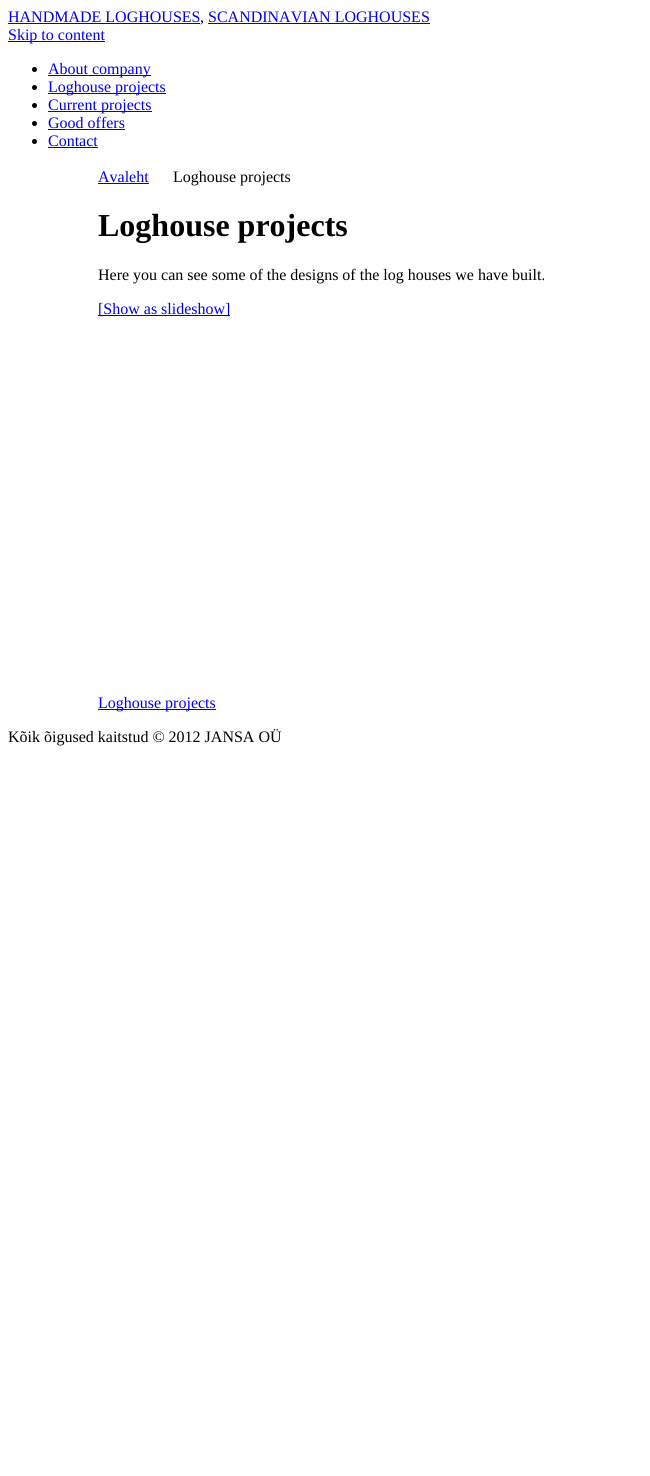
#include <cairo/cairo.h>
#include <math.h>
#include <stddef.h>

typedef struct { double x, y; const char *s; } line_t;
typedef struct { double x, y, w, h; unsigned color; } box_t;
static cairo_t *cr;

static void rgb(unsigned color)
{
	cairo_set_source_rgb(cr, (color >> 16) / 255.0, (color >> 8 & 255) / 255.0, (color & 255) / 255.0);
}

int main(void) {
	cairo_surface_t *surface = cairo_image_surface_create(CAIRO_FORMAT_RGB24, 650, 1476);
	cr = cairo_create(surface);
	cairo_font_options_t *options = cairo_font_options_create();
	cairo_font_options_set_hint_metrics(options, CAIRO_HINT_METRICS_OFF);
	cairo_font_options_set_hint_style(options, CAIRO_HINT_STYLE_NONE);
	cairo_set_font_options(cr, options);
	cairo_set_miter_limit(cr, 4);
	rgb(0xffffff);
	cairo_paint(cr);
	{
		static const box_t items[] = {
			{8, 23, 192, 1, 0x0000ee},
			{208, 23, 222, 1, 0x0000ee},
			{8, 41, 97, 1, 0x0000ee},
		};
		for (size_t i = 0; i < sizeof items / sizeof *items; i++) {
			rgb(items[i].color);
			cairo_rectangle(cr, items[i].x, items[i].y, items[i].w, items[i].h);
			cairo_fill(cr);
		}
	}
	rgb(0x000000);
	cairo_arc(cr, 34.5, 69.5, 2.5, 0, 2 * M_PI);
	cairo_fill(cr);
	rgb(0x0000ee);
	cairo_rectangle(cr, 48, 75, 103, 1);
	cairo_fill(cr);
	rgb(0x000000);
	cairo_arc(cr, 34.5, 87.5, 2.5, 0, 2 * M_PI);
	cairo_fill(cr);
	rgb(0x0000ee);
	cairo_rectangle(cr, 48, 93, 118, 1);
	cairo_fill(cr);
	rgb(0x000000);
	cairo_arc(cr, 34.5, 105.5, 2.5, 0, 2 * M_PI);
	cairo_fill(cr);
	rgb(0x0000ee);
	cairo_rectangle(cr, 48, 111, 104, 1);
	cairo_fill(cr);
	rgb(0x000000);
	cairo_arc(cr, 34.5, 123.5, 2.5, 0, 2 * M_PI);
	cairo_fill(cr);
	rgb(0x0000ee);
	cairo_rectangle(cr, 48, 129, 77, 1);
	cairo_fill(cr);
	rgb(0x000000);
	cairo_arc(cr, 34.5, 141.5, 2.5, 0, 2 * M_PI);
	cairo_fill(cr);
	{
		static const box_t items[] = {
			{48, 147, 50, 1, 0x0000ee},
			{98, 183, 51, 1, 0x0000ee},
			{98, 315, 132, 1, 0x0000ee},
			{98, 709, 118, 1, 0x0000ee},
		};
		for (size_t i = 0; i < sizeof items / sizeof *items; i++) {
			rgb(items[i].color);
			cairo_rectangle(cr, items[i].x, items[i].y, items[i].w, items[i].h);
			cairo_fill(cr);
		}
	}
	cairo_select_font_face(cr, "Liberation Serif", CAIRO_FONT_SLANT_NORMAL, CAIRO_FONT_WEIGHT_NORMAL);
	cairo_set_font_size(cr, 16);
	cairo_move_to(cr, 8, 22);
	cairo_show_text(cr, "HANDMADE LOGHOUSES");
	rgb(0x000000);
	cairo_move_to(cr, 200, 22);
	cairo_show_text(cr, ",");
	rgb(0x0000ee);
	{
		static const line_t items[] = {
			{208, 22, "SCANDINAVIAN LOGHOUSES"},
			{8, 40, "Skip to content"},
			{48, 74, "About company"},
			{48, 92, "Loghouse projects"},
			{48, 110, "Current projects"},
			{48, 128, "Good offers"},
			{48, 146, "Contact"},
			{98, 182, "Avaleht"},
		};
		for (size_t i = 0; i < sizeof items / sizeof *items; i++) {
			cairo_move_to(cr, items[i].x, items[i].y);
			cairo_show_text(cr, items[i].s);
		}
	}
	rgb(0x000000);
	cairo_move_to(cr, 173, 182);
	cairo_show_text(cr, "Loghouse projects");
	cairo_select_font_face(cr, "Liberation Serif", CAIRO_FONT_SLANT_NORMAL, CAIRO_FONT_WEIGHT_BOLD);
	cairo_set_font_size(cr, 32);
	cairo_move_to(cr, 98, 236);
	cairo_show_text(cr, "Loghouse projects");
	cairo_select_font_face(cr, "Liberation Serif", CAIRO_FONT_SLANT_NORMAL, CAIRO_FONT_WEIGHT_NORMAL);
	cairo_set_font_size(cr, 16);
	cairo_move_to(cr, 98, 280);
	cairo_show_text(cr, "Here you can see some of the designs of the log houses we have built.");
	rgb(0x0000ee);
	cairo_move_to(cr, 98, 314);
	cairo_show_text(cr, "[Show as slideshow]");
	cairo_move_to(cr, 98, 708);
	cairo_show_text(cr, "Loghouse projects");
	rgb(0x000000);
	cairo_move_to(cr, 8, 742);
	cairo_show_text(cr, "Kõik õigused kaitstud © 2012 JANSA OÜ");
	cairo_surface_write_to_png(surface, "page.png");
	cairo_font_options_destroy(options);
	cairo_destroy(cr);
	cairo_surface_destroy(surface);
	return 0;
}
